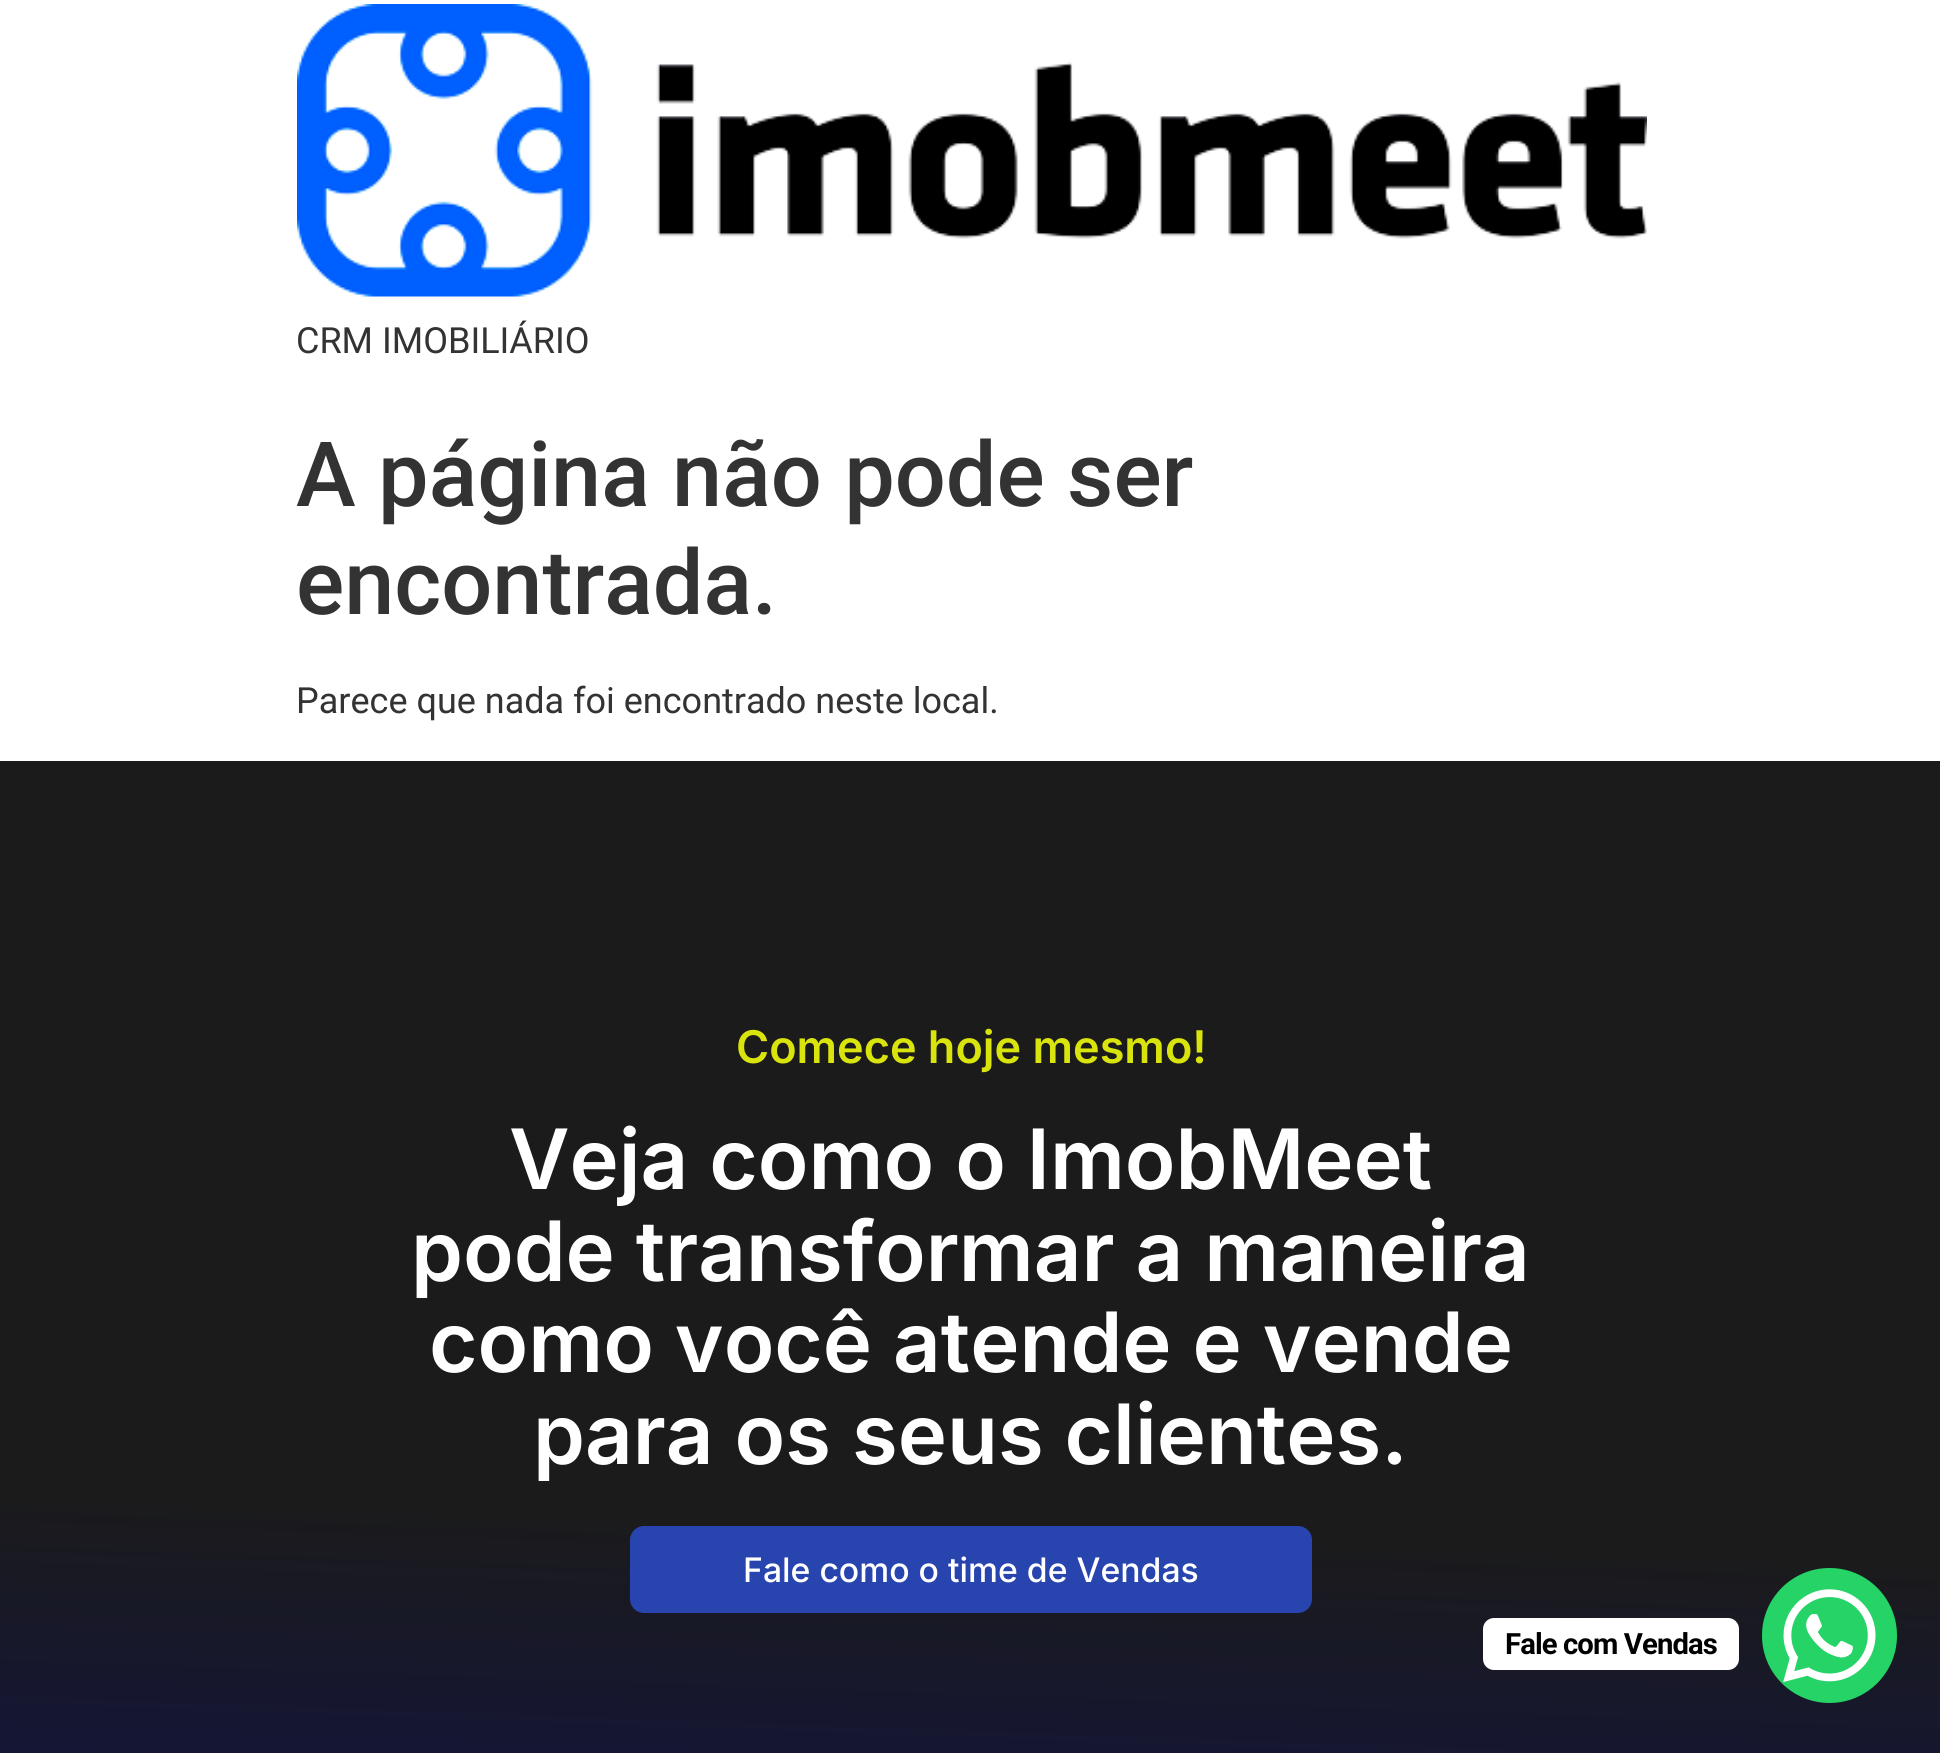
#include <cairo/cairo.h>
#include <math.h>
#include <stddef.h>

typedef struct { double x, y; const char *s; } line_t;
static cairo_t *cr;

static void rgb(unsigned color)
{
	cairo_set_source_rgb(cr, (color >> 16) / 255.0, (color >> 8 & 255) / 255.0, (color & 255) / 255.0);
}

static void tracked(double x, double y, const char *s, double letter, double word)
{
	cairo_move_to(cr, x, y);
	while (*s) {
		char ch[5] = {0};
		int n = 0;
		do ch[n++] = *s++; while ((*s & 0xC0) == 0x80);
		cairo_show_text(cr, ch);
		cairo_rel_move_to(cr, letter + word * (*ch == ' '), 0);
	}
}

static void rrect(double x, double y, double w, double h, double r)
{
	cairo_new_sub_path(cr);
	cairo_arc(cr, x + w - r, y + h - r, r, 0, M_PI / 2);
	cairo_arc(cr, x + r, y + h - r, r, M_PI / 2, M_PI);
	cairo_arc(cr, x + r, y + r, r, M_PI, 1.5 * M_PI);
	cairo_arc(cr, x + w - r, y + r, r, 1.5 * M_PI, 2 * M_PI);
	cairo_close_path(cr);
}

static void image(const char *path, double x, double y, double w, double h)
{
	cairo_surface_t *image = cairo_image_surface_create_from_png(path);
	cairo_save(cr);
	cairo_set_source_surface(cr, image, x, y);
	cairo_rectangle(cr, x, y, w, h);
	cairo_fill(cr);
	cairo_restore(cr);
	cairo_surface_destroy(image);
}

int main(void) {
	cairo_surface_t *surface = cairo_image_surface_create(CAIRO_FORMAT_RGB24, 1940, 1753);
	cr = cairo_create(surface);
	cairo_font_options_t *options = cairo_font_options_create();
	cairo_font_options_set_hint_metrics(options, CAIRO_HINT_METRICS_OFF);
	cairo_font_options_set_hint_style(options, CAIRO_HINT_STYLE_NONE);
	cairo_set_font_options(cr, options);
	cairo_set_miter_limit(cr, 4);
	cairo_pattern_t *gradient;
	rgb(0xffffff);
	cairo_paint(cr);
	image("img/1.png", 297, 4, 1350, 293);
	gradient = cairo_pattern_create_linear(992, 727, 950, 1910);
	cairo_pattern_add_color_stop_rgba(gradient, 0.67, 0.106, 0.106, 0.106, 1);
	cairo_pattern_add_color_stop_rgba(gradient, 1, 0.067, 0.075, 0.255, 1);
	cairo_set_source(cr, gradient);
	cairo_pattern_destroy(gradient);
	cairo_rectangle(cr, 0, 761, 1940, 992);
	cairo_fill(cr);
	rgb(0x2845af);
	rrect(630, 1526, 682, 87, 14);
	cairo_fill(cr);
	rgb(0xffffff);
	rrect(1483, 1618, 256, 52, 11);
	cairo_fill(cr);
	rgb(0x25d366);
	cairo_arc(cr, 1829.5, 1635.5, 67.5, 0, 2 * M_PI);
	cairo_fill(cr);
	image("img/2.png", 1783, 1589, 93, 93);
	cairo_select_font_face(cr, "Roboto", CAIRO_FONT_SLANT_NORMAL, CAIRO_FONT_WEIGHT_NORMAL);
	cairo_set_font_size(cr, 36);
	rgb(0x333333);
	cairo_move_to(cr, 296, 353);
	cairo_show_text(cr, "CRM IMOBILIÁRIO");
	cairo_select_font_face(cr, "Roboto Medium", CAIRO_FONT_SLANT_NORMAL, CAIRO_FONT_WEIGHT_NORMAL);
	cairo_set_font_size(cr, 90);
	cairo_move_to(cr, 296, 506);
	cairo_show_text(cr, "A página não pode ser");
	cairo_move_to(cr, 296, 614);
	cairo_show_text(cr, "encontrada.");
	cairo_select_font_face(cr, "Roboto", CAIRO_FONT_SLANT_NORMAL, CAIRO_FONT_WEIGHT_NORMAL);
	cairo_set_font_size(cr, 36);
	cairo_move_to(cr, 296, 713);
	cairo_show_text(cr, "Parece que nada foi encontrado neste local.");
	cairo_select_font_face(cr, "Inter SemiBold", CAIRO_FONT_SLANT_NORMAL, CAIRO_FONT_WEIGHT_NORMAL);
	cairo_set_font_size(cr, 45);
	rgb(0xd9e30c);
	cairo_move_to(cr, 736, 1063);
	cairo_show_text(cr, "Comece hoje mesmo!");
	cairo_set_font_size(cr, 83.25);
	rgb(0xffffff);
	{
		static const line_t items[] = {
			{509, 1189, "Veja como o ImobMeet"},
			{411, 1281, "pode transformar a maneira"},
			{429, 1372, "como você atende e vende"},
			{533, 1464, "para os seus clientes."},
		};
		for (size_t i = 0; i < sizeof items / sizeof *items; i++) {
			cairo_move_to(cr, items[i].x, items[i].y);
			cairo_show_text(cr, items[i].s);
		}
	}
	cairo_select_font_face(cr, "Inter Medium", CAIRO_FONT_SLANT_NORMAL, CAIRO_FONT_WEIGHT_NORMAL);
	cairo_set_font_size(cr, 33.75);
	cairo_move_to(cr, 743, 1582);
	cairo_show_text(cr, "Fale como o time de Vendas");
	cairo_select_font_face(cr, "Roboto", CAIRO_FONT_SLANT_NORMAL, CAIRO_FONT_WEIGHT_BOLD);
	cairo_set_font_size(cr, 29.25);
	rgb(0x000000);
	tracked(1505, 1654, "Fale com Vendas", -0.9, 0);
	cairo_surface_write_to_png(surface, "page.png");
	cairo_font_options_destroy(options);
	cairo_destroy(cr);
	cairo_surface_destroy(surface);
	return 0;
}
